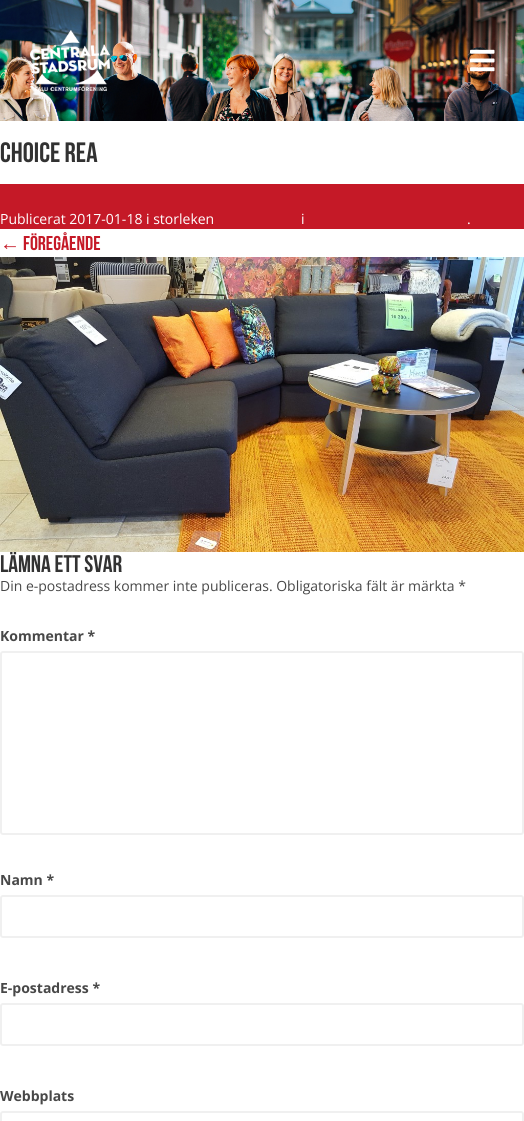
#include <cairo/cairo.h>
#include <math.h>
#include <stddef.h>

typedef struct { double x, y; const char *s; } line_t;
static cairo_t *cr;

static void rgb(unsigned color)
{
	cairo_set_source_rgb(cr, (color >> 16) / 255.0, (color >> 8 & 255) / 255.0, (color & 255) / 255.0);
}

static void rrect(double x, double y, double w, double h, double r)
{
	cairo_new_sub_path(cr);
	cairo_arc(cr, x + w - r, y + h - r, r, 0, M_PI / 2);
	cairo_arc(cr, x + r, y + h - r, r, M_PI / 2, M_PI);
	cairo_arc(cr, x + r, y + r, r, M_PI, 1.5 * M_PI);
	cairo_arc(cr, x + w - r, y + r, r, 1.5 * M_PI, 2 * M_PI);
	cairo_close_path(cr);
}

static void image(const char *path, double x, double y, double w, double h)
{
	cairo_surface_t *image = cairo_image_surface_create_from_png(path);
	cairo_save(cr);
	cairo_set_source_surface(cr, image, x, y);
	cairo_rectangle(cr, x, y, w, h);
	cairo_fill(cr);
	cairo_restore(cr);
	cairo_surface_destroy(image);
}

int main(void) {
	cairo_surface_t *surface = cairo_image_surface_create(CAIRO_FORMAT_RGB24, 524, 1121);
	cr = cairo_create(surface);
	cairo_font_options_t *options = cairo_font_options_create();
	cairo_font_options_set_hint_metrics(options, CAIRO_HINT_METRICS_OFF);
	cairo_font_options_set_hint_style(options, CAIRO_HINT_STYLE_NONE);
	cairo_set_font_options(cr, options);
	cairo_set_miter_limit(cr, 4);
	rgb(0xffffff);
	cairo_paint(cr);
	image("img/1.png", 0, 0, 524, 121);
	image("img/2.png", 30, 30, 80, 61);
	image("img/3.png", 470, 49, 25, 23);
	rgb(0xc51927);
	cairo_rectangle(cr, 0, 184, 524, 45);
	cairo_fill(cr);
	image("img/4.png", 0, 257, 524, 295);
	rrect(1, 652, 522, 182, 2);
	rgb(0xf0f0f0);
	cairo_stroke(cr);
	rrect(1, 896, 522, 41, 2);
	cairo_stroke(cr);
	rrect(1, 1004, 522, 41, 2);
	cairo_stroke(cr);
	rrect(1, 1112, 522, 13, 2);
	cairo_stroke(cr);
	cairo_select_font_face(cr, "Bebas Neue", CAIRO_FONT_SLANT_NORMAL, CAIRO_FONT_WEIGHT_BOLD);
	cairo_set_font_size(cr, 28);
	rgb(0x323232);
	cairo_move_to(cr, 0, 162);
	cairo_show_text(cr, "choice rea");
	cairo_select_font_face(cr, "Open Sans", CAIRO_FONT_SLANT_NORMAL, CAIRO_FONT_WEIGHT_NORMAL);
	cairo_set_font_size(cr, 14);
	rgb(0xffffff);
	{
		static const line_t items[] = {
			{0, 224, "Publicerat 2017-01-18 i storleken"},
			{301, 224, "i"},
			{467, 224, "."},
		};
		for (size_t i = 0; i < sizeof items / sizeof *items; i++) {
			cairo_move_to(cr, items[i].x, items[i].y);
			cairo_show_text(cr, items[i].s);
		}
	}
	cairo_select_font_face(cr, "Liberation Serif", CAIRO_FONT_SLANT_NORMAL, CAIRO_FONT_WEIGHT_BOLD);
	cairo_set_font_size(cr, 20);
	rgb(0xc51927);
	cairo_move_to(cr, 0, 250);
	cairo_show_text(cr, "←");
	cairo_select_font_face(cr, "Bebas Neue", CAIRO_FONT_SLANT_NORMAL, CAIRO_FONT_WEIGHT_BOLD);
	cairo_move_to(cr, 23, 250);
	cairo_show_text(cr, "Föregående");
	cairo_set_font_size(cr, 24);
	rgb(0x323232);
	cairo_move_to(cr, 0, 572);
	cairo_show_text(cr, "Lämna ett svar");
	cairo_select_font_face(cr, "Open Sans", CAIRO_FONT_SLANT_NORMAL, CAIRO_FONT_WEIGHT_NORMAL);
	cairo_set_font_size(cr, 14);
	rgb(0x484848);
	cairo_move_to(cr, 0, 591);
	cairo_show_text(cr, "Din e-postadress kommer inte publiceras. Obligatoriska fält är märkta *");
	cairo_select_font_face(cr, "Open Sans", CAIRO_FONT_SLANT_NORMAL, CAIRO_FONT_WEIGHT_BOLD);
	{
		static const line_t items[] = {
			{0, 641, "Kommentar *"},
			{0, 885, "Namn *"},
			{0, 993, "E-postadress *"},
			{0, 1101, "Webbplats"},
		};
		for (size_t i = 0; i < sizeof items / sizeof *items; i++) {
			cairo_move_to(cr, items[i].x, items[i].y);
			cairo_show_text(cr, items[i].s);
		}
	}
	cairo_surface_write_to_png(surface, "page.png");
	cairo_font_options_destroy(options);
	cairo_destroy(cr);
	cairo_surface_destroy(surface);
	return 0;
}
